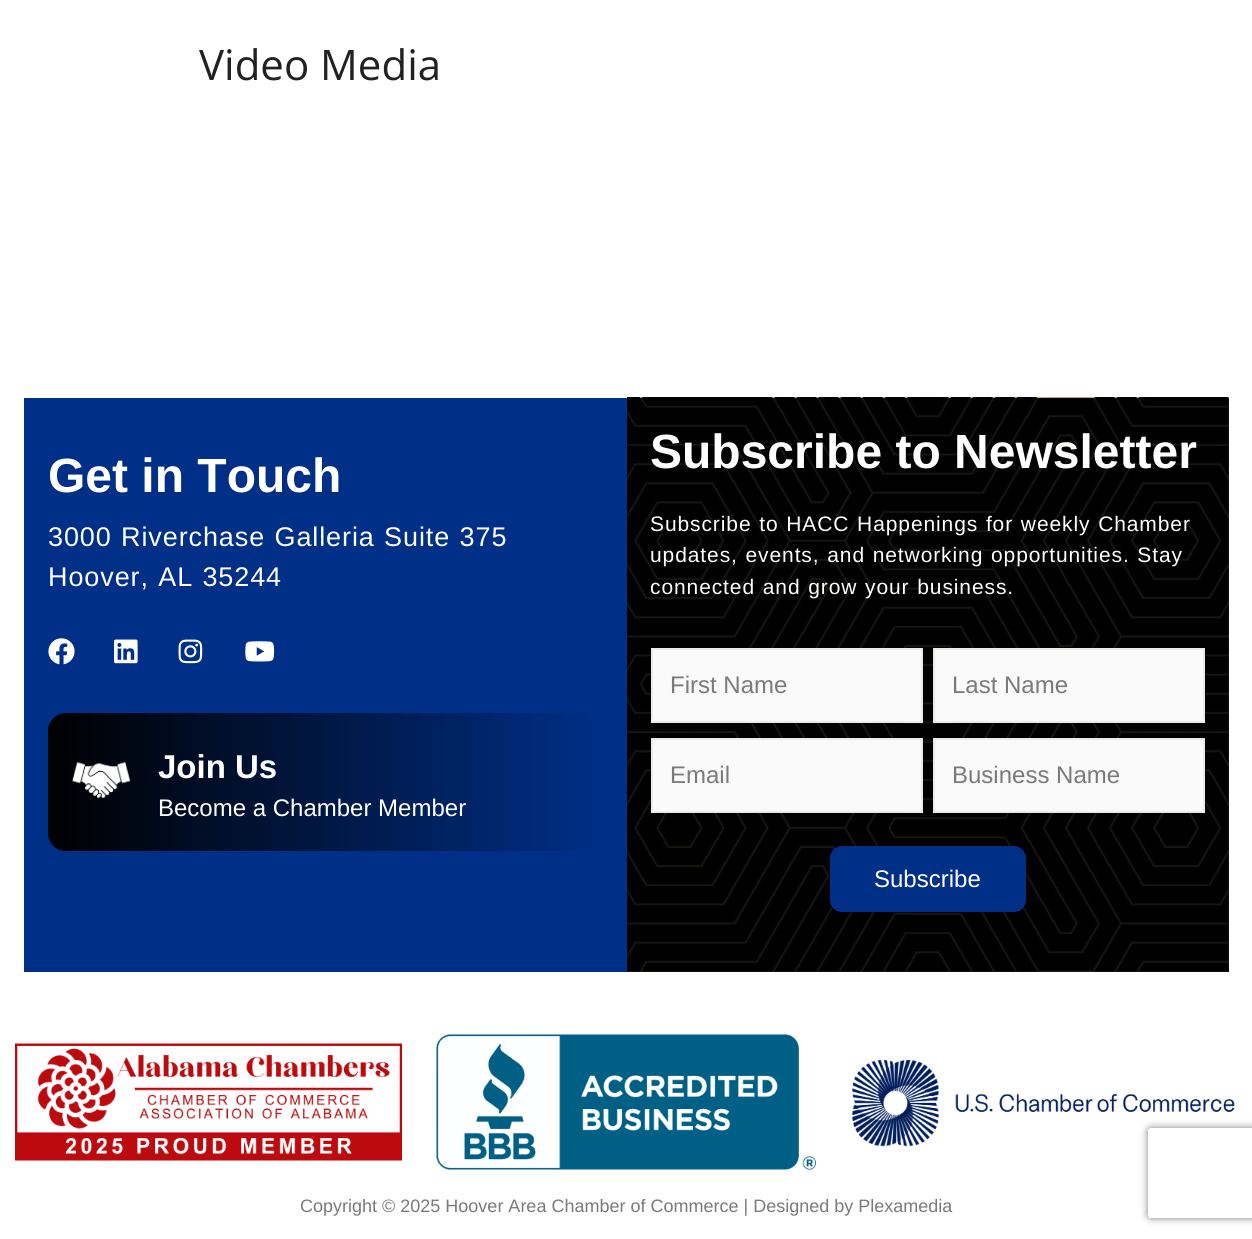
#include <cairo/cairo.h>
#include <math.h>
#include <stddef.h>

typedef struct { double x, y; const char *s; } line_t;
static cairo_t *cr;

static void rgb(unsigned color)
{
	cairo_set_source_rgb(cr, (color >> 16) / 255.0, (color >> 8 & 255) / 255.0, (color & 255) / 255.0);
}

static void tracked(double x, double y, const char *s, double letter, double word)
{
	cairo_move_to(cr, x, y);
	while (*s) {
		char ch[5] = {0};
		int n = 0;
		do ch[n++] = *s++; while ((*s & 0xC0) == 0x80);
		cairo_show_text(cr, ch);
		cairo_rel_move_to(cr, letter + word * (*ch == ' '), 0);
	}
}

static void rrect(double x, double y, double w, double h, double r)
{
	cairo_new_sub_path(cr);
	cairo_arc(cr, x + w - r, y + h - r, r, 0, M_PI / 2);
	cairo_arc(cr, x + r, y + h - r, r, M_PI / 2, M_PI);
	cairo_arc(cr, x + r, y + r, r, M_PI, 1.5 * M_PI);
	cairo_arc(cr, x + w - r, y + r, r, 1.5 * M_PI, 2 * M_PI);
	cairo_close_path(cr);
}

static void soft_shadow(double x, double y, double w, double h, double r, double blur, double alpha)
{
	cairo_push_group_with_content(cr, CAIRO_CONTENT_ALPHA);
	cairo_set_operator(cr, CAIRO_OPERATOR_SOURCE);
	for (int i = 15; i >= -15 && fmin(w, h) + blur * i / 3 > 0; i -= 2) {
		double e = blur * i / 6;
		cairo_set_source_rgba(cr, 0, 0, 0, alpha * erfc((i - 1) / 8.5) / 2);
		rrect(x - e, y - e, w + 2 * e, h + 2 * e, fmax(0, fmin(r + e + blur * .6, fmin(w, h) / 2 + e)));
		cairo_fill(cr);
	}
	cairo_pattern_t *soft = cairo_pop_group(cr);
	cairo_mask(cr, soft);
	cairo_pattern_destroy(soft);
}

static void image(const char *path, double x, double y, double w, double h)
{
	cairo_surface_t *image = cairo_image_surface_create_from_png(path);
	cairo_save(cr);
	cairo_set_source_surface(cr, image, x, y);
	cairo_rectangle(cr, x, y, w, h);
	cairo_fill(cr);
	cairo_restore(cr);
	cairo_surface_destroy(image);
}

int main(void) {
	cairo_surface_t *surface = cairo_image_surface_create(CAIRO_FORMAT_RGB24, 1252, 1239);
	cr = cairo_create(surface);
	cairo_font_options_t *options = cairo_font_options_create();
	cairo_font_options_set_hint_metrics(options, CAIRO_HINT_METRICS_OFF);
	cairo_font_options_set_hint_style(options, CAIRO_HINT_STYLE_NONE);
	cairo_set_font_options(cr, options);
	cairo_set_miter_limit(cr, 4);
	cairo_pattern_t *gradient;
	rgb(0xffffff);
	cairo_paint(cr);
	rgb(0x1f1f1f);
	cairo_rectangle(cr, 627, 398, 602, 574);
	cairo_fill(cr);
	rgb(0x002f87);
	cairo_rectangle(cr, 24, 398, 603, 574);
	cairo_fill(cr);
	image("img/1.png", 48, 638, 27, 27);
	image("img/2.png", 114, 639, 24, 25);
	image("img/3.png", 178, 639, 25, 25);
	image("img/4.png", 245, 641, 30, 21);
	gradient = cairo_pattern_create_linear(48, 782, 603, 782);
	cairo_pattern_add_color_stop_rgba(gradient, 0, 0, 0, 0, 1);
	cairo_pattern_add_color_stop_rgba(gradient, 1, 0, 0.184, 0.529, 1);
	cairo_set_source(cr, gradient);
	cairo_pattern_destroy(gradient);
	rrect(48, 713, 555, 138, 18);
	cairo_fill(cr);
	image("img/5.png", 72, 762, 59, 37);
	image("img/6.png", 627, 397, 602, 575);
	rgb(0xfafafa);
	cairo_rectangle(cr, 652, 649, 270, 73);
	cairo_fill_preserve(cr);
	rgb(0xeaeaea);
	cairo_stroke(cr);
	rgb(0xfafafa);
	cairo_rectangle(cr, 934, 649, 270, 73);
	cairo_fill_preserve(cr);
	rgb(0xeaeaea);
	cairo_stroke(cr);
	rgb(0xfafafa);
	cairo_rectangle(cr, 652, 739, 270, 73);
	cairo_fill_preserve(cr);
	rgb(0xeaeaea);
	cairo_stroke(cr);
	rgb(0xfafafa);
	cairo_rectangle(cr, 934, 739, 270, 73);
	cairo_fill_preserve(cr);
	rgb(0xeaeaea);
	cairo_stroke(cr);
	rgb(0x002f87);
	rrect(830, 846, 196, 66, 12);
	cairo_fill(cr);
	image("img/7.png", 15, 1043, 387, 118);
	image("img/8.png", 436, 1034, 380, 136);
	image("img/9.png", 852, 1059, 383, 88);
	cairo_save(cr);
	cairo_set_fill_rule(cr, CAIRO_FILL_RULE_EVEN_ODD);
	cairo_new_path(cr);
	cairo_move_to(cr, 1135, 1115);
	cairo_line_to(cr, 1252, 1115);
	cairo_line_to(cr, 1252, 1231);
	cairo_line_to(cr, 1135, 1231);
	cairo_close_path(cr);
	cairo_move_to(cr, 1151, 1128);
	cairo_line_to(cr, 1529, 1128);
	cairo_curve_to(cr, 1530.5, 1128, 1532, 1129.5, 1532, 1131);
	cairo_line_to(cr, 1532, 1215);
	cairo_curve_to(cr, 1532, 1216.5, 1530.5, 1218, 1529, 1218);
	cairo_line_to(cr, 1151, 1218);
	cairo_curve_to(cr, 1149.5, 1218, 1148, 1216.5, 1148, 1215);
	cairo_line_to(cr, 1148, 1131);
	cairo_curve_to(cr, 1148, 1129.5, 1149.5, 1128, 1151, 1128);
	cairo_close_path(cr);
	cairo_clip(cr);
	rgb(0x808080);
	soft_shadow(1148, 1128, 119, 90, 3, 4, 1);
	cairo_restore(cr);
	cairo_select_font_face(cr, "Open Sans", CAIRO_FONT_SLANT_NORMAL, CAIRO_FONT_WEIGHT_NORMAL);
	cairo_set_font_size(cr, 42);
	rgb(0x212121);
	cairo_move_to(cr, 199, 80);
	cairo_show_text(cr, "Video Media");
	cairo_select_font_face(cr, "Liberation Sans", CAIRO_FONT_SLANT_NORMAL, CAIRO_FONT_WEIGHT_BOLD);
	cairo_set_font_size(cr, 48);
	rgb(0xffffff);
	cairo_move_to(cr, 48, 492);
	cairo_show_text(cr, "Get in Touch");
	cairo_select_font_face(cr, "Liberation Sans", CAIRO_FONT_SLANT_NORMAL, CAIRO_FONT_WEIGHT_NORMAL);
	cairo_set_font_size(cr, 27);
	tracked(48, 546, "3000 Riverchase Galleria Suite 375", 0.9, 1);
	tracked(48, 586, "Hoover, AL 35244", 0.9, 1);
	cairo_select_font_face(cr, "Liberation Sans", CAIRO_FONT_SLANT_NORMAL, CAIRO_FONT_WEIGHT_BOLD);
	cairo_set_font_size(cr, 33);
	cairo_move_to(cr, 158, 778);
	cairo_show_text(cr, "Join Us");
	cairo_select_font_face(cr, "Liberation Sans", CAIRO_FONT_SLANT_NORMAL, CAIRO_FONT_WEIGHT_NORMAL);
	cairo_set_font_size(cr, 24);
	cairo_move_to(cr, 158, 816);
	cairo_show_text(cr, "Become a Chamber Member");
	cairo_select_font_face(cr, "Liberation Sans", CAIRO_FONT_SLANT_NORMAL, CAIRO_FONT_WEIGHT_BOLD);
	cairo_set_font_size(cr, 48);
	cairo_move_to(cr, 650, 468);
	cairo_show_text(cr, "Subscribe to Newsletter");
	cairo_select_font_face(cr, "Liberation Sans", CAIRO_FONT_SLANT_NORMAL, CAIRO_FONT_WEIGHT_NORMAL);
	cairo_set_font_size(cr, 21);
	{
		static const line_t items[] = {
			{650, 531, "Subscribe to HACC Happenings for weekly Chamber"},
			{650, 562, "updates, events, and networking opportunities. Stay"},
			{650, 594, "connected and grow your business."},
		};
		for (size_t i = 0; i < sizeof items / sizeof *items; i++) {
			tracked(items[i].x, items[i].y, items[i].s, 0.9, 1);
		}
	}
	cairo_set_font_size(cr, 24);
	rgb(0x7a7a7a);
	{
		static const line_t items[] = {
			{670, 693, "First Name"},
			{952, 693, "Last Name"},
			{670, 783, "Email"},
			{952, 783, "Business Name"},
		};
		for (size_t i = 0; i < sizeof items / sizeof *items; i++) {
			cairo_move_to(cr, items[i].x, items[i].y);
			cairo_show_text(cr, items[i].s);
		}
	}
	rgb(0xffffff);
	cairo_move_to(cr, 874, 887);
	cairo_show_text(cr, "Subscribe");
	cairo_set_font_size(cr, 18);
	rgb(0x7a7a7a);
	cairo_move_to(cr, 300, 1212);
	cairo_show_text(cr, "Copyright © 2025 Hoover Area Chamber of Commerce | Designed by Plexamedia");
	cairo_surface_write_to_png(surface, "page.png");
	cairo_font_options_destroy(options);
	cairo_destroy(cr);
	cairo_surface_destroy(surface);
	return 0;
}
